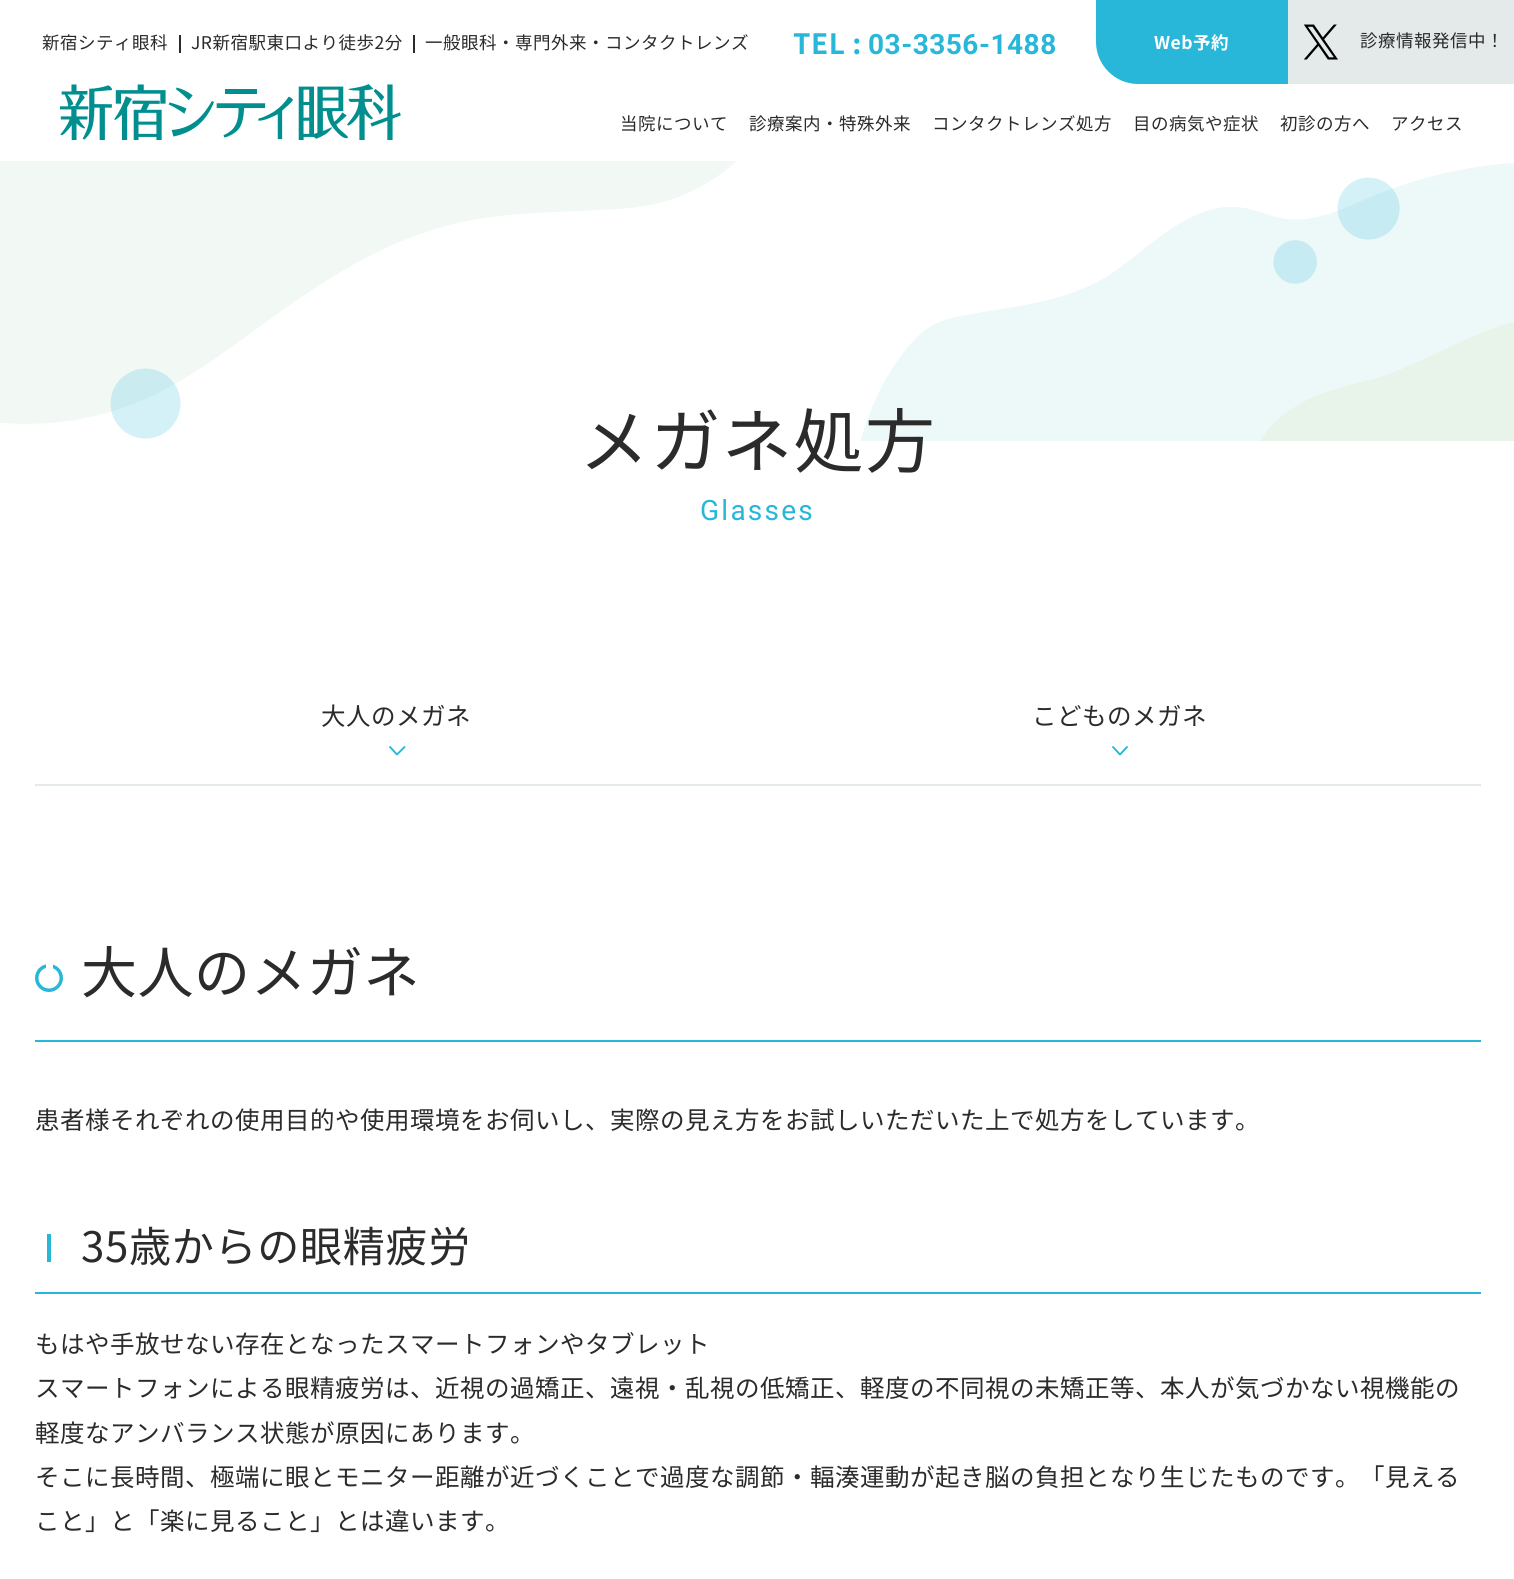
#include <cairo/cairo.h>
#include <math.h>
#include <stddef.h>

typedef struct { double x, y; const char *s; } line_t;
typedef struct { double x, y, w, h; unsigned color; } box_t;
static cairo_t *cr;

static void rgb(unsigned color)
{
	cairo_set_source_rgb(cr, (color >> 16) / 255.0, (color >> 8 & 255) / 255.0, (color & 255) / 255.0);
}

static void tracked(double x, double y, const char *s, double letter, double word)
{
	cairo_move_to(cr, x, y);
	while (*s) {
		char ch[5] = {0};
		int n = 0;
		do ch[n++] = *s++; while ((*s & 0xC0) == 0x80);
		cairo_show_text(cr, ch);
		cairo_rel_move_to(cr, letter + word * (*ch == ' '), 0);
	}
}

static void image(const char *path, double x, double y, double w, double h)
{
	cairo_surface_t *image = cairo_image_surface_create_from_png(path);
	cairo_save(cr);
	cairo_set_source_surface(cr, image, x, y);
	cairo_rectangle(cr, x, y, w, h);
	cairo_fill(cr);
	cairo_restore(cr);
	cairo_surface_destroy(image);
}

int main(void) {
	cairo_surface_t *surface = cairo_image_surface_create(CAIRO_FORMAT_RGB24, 1514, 1579);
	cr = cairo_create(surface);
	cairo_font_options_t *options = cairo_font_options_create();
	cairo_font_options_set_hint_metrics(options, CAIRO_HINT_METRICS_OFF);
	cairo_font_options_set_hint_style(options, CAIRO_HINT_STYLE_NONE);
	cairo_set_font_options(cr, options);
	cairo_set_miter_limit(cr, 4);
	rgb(0xffffff);
	cairo_paint(cr);
	rgb(0x2b2b2b);
	cairo_rectangle(cr, 179, 35, 2, 18);
	cairo_fill(cr);
	cairo_rectangle(cr, 413, 35, 2, 18);
	cairo_fill(cr);
	rgb(0x28b7d9);
	cairo_new_path(cr);
	cairo_move_to(cr, 1096, 0);
	cairo_line_to(cr, 1288, 0);
	cairo_line_to(cr, 1288, 84);
	cairo_line_to(cr, 1138, 84);
	cairo_curve_to(cr, 1115, 84, 1096, 65, 1096, 42);
	cairo_close_path(cr);
	cairo_fill(cr);
	rgb(0xe4e9ea);
	cairo_rectangle(cr, 1288, 0, 226, 84);
	cairo_fill(cr);
	image("img/1.png", 1303, 24, 35, 36);
	image("img/2.png", 60, 84, 341, 56);
	image("img/3.png", 860, 163, 654, 278);
	image("img/4.png", 0, 161, 737, 278);
	cairo_rectangle(cr, 35, 784, 1446, 2);
	cairo_fill(cr);
	cairo_new_path(cr);
	cairo_move_to(cr, 404.5, 747);
	cairo_line_to(cr, 397, 754.5);
	cairo_move_to(cr, 390, 747);
	cairo_line_to(cr, 397, 754.5);
	rgb(0x28b7d9);
	cairo_set_line_width(cr, 1.9);
	cairo_set_line_cap(cr, CAIRO_LINE_CAP_ROUND);
	cairo_stroke(cr);
	cairo_new_path(cr);
	cairo_move_to(cr, 1127, 747);
	cairo_line_to(cr, 1120, 754.5);
	cairo_move_to(cr, 1113, 747);
	cairo_line_to(cr, 1120, 754.5);
	cairo_stroke(cr);
	cairo_rectangle(cr, 35, 1040, 1446, 2);
	cairo_fill(cr);
	cairo_arc(cr, 49, 978, 12.25, 0, 2 * M_PI);
	cairo_set_line_width(cr, 3.5);
	cairo_set_line_cap(cr, CAIRO_LINE_CAP_BUTT);
	cairo_stroke(cr);
	{
		static const box_t items[] = {
			{46, 964, 7, 5, 0xffffff},
			{35, 1292, 1446, 2, 0x28b7d9},
			{47, 1234, 4, 28, 0x28b7d9},
		};
		for (size_t i = 0; i < sizeof items / sizeof *items; i++) {
			rgb(items[i].color);
			cairo_rectangle(cr, items[i].x, items[i].y, items[i].w, items[i].h);
			cairo_fill(cr);
		}
	}
	cairo_select_font_face(cr, "Noto Sans JP", CAIRO_FONT_SLANT_NORMAL, CAIRO_FONT_WEIGHT_NORMAL);
	cairo_set_font_size(cr, 17.5);
	rgb(0x2b2b2b);
	{
		static const line_t items[] = {
			{42, 49, "新宿シティ眼科"},
			{191, 49, "JR新宿駅東口より徒歩2分"},
			{425, 49, "一般眼科・専門外来・コンタクトレンズ"},
		};
		for (size_t i = 0; i < sizeof items / sizeof *items; i++) {
			tracked(items[i].x, items[i].y, items[i].s, 0.5, 0);
		}
	}
	cairo_select_font_face(cr, "Noto Sans JP", CAIRO_FONT_SLANT_NORMAL, CAIRO_FONT_WEIGHT_BOLD);
	cairo_set_font_size(cr, 28);
	rgb(0x28b7d9);
	tracked(793, 54, "TEL :", 0.5, 0);
	cairo_select_font_face(cr, "Roboto", CAIRO_FONT_SLANT_NORMAL, CAIRO_FONT_WEIGHT_BOLD);
	tracked(868, 54, "03-3356-1488", 0.5, 0);
	cairo_select_font_face(cr, "Noto Sans JP", CAIRO_FONT_SLANT_NORMAL, CAIRO_FONT_WEIGHT_BOLD);
	cairo_set_font_size(cr, 17.5);
	rgb(0xffffff);
	tracked(1154, 49, "Web予約", 0.5, 0);
	cairo_select_font_face(cr, "Noto Sans JP", CAIRO_FONT_SLANT_NORMAL, CAIRO_FONT_WEIGHT_NORMAL);
	rgb(0x2b2b2b);
	{
		static const line_t items[] = {
			{1360, 47, "診療情報発信中！"},
			{620, 130, "当院について"},
			{749, 130, "診療案内・特殊外来"},
			{932, 130, "コンタクトレンズ処方"},
			{1133, 130, "目の病気や症状"},
			{1280, 130, "初診の方へ"},
			{1391, 130, "アクセス"},
		};
		for (size_t i = 0; i < sizeof items / sizeof *items; i++) {
			tracked(items[i].x, items[i].y, items[i].s, 0.5, 0);
		}
	}
	cairo_set_font_size(cr, 70);
	tracked(579, 467, "メガネ処方", 1.5, 0);
	cairo_select_font_face(cr, "Roboto", CAIRO_FONT_SLANT_NORMAL, CAIRO_FONT_WEIGHT_NORMAL);
	cairo_set_font_size(cr, 28);
	rgb(0x28b7d9);
	tracked(700, 520, "Glasses", 2.25, 0);
	cairo_select_font_face(cr, "Noto Sans JP", CAIRO_FONT_SLANT_NORMAL, CAIRO_FONT_WEIGHT_NORMAL);
	cairo_set_font_size(cr, 24.5);
	rgb(0x2b2b2b);
	tracked(321, 725, "大人のメガネ", 0.5, 0);
	tracked(1032, 725, "こどものメガネ", 0.5, 0);
	cairo_set_font_size(cr, 56);
	tracked(81, 993, "大人のメガネ", 0.5, 0);
	cairo_set_font_size(cr, 24.5);
	tracked(35, 1129, "患者様それぞれの使用目的や使用環境をお伺いし、実際の見え方をお試しいただいた上で処方をしています。", 0.5, 0);
	cairo_set_font_size(cr, 42);
	tracked(81, 1262, "35歳からの眼精疲労", 0.75, 0);
	cairo_set_font_size(cr, 24.5);
	{
		static const line_t items[] = {
			{35, 1353, "もはや手放せない存在となったスマートフォンやタブレット"},
			{35, 1397, "スマートフォンによる眼精疲労は、近視の過矯正、遠視・乱視の低矯正、軽度の不同視の未矯正等、本人が気づかない視機能の"},
			{35, 1442, "軽度なアンバランス状態が原因にあります。"},
			{35, 1486, "そこに長時間、極端に眼とモニター距離が近づくことで過度な調節・輻湊運動が起き脳の負担となり生じたものです。「見える"},
			{35, 1530, "こと」と「楽に見ること」とは違います。"},
		};
		for (size_t i = 0; i < sizeof items / sizeof *items; i++) {
			tracked(items[i].x, items[i].y, items[i].s, 0.5, 0);
		}
	}
	cairo_surface_write_to_png(surface, "page.png");
	cairo_font_options_destroy(options);
	cairo_destroy(cr);
	cairo_surface_destroy(surface);
	return 0;
}
